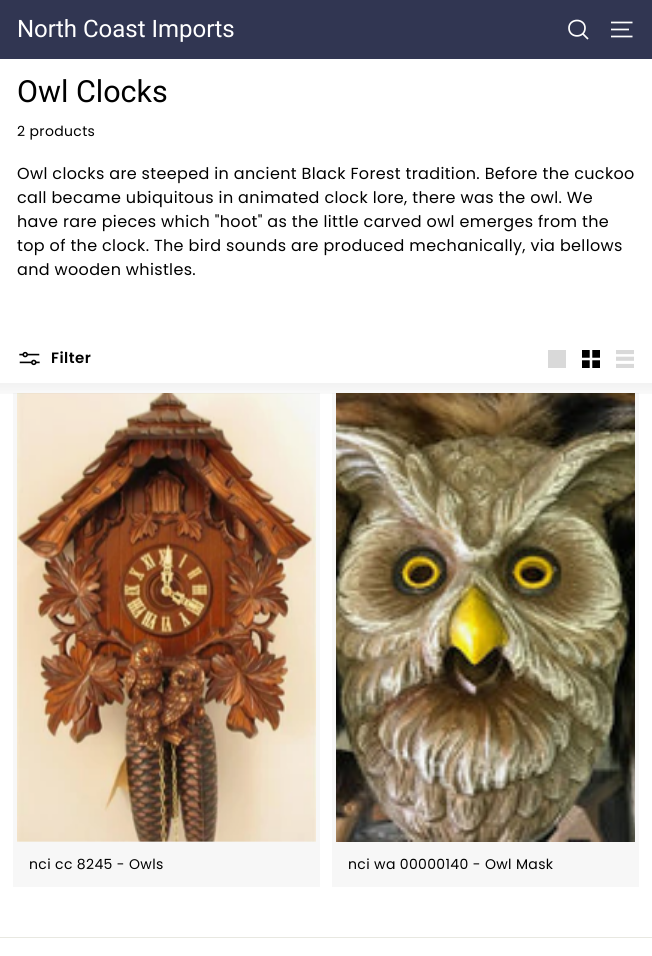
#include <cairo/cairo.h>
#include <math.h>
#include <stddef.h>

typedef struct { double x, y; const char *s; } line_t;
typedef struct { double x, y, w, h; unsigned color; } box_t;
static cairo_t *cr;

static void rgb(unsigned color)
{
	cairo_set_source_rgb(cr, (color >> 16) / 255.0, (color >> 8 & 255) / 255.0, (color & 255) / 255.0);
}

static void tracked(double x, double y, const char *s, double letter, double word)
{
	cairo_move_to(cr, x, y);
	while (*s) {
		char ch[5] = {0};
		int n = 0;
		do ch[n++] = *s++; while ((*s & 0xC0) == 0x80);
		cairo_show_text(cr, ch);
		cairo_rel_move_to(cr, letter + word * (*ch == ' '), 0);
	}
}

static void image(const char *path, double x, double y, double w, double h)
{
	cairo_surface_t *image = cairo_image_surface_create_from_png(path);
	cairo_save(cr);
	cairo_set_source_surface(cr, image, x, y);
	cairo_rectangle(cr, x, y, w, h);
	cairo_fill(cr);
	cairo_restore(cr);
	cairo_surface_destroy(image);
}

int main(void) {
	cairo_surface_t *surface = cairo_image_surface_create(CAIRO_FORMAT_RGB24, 652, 956);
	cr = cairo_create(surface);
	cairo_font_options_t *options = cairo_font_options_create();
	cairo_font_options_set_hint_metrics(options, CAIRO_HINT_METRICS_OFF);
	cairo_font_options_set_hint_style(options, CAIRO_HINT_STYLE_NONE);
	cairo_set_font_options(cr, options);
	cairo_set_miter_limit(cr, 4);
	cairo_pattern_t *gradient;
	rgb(0xffffff);
	cairo_paint(cr);
	{
		static const box_t items[] = {
			{332, 393, 307, 494, 0xf7f7f7},
			{13, 393, 307, 494, 0xf7f7f7},
			{0, 0, 652, 59, 0x313652},
		};
		for (size_t i = 0; i < sizeof items / sizeof *items; i++) {
			rgb(items[i].color);
			cairo_rectangle(cr, items[i].x, items[i].y, items[i].w, items[i].h);
			cairo_fill(cr);
		}
	}
	cairo_new_path(cr);
	cairo_move_to(cr, 585, 28);
	cairo_curve_to(cr, 585, 38.5, 569, 38.5, 569, 28);
	cairo_curve_to(cr, 569, 18, 585, 18, 585, 28);
	cairo_close_path(cr);
	cairo_move_to(cr, 588, 39);
	cairo_line_to(cr, 582.5, 33.5);
	rgb(0xffffff);
	cairo_set_line_width(cr, 1.7);
	cairo_stroke(cr);
	cairo_new_path(cr);
	cairo_move_to(cr, 611, 22.5);
	cairo_line_to(cr, 632.5, 22.5);
	cairo_move_to(cr, 611, 29.5);
	cairo_line_to(cr, 629, 29.5);
	cairo_move_to(cr, 611, 36.5);
	cairo_line_to(cr, 632.5, 36.5);
	cairo_stroke(cr);
	image("img/1.png", 19, 351, 21, 15);
	rgb(0xd9d9d9);
	cairo_rectangle(cr, 548, 350, 18, 18);
	cairo_fill(cr);
	image("img/2.png", 582, 350, 18, 18);
	image("img/3.png", 616, 350, 18, 18);
	image("img/4.png", 17, 393, 299, 449);
	image("img/5.png", 336, 393, 299, 449);
	gradient = cairo_pattern_create_linear(326, 383, 326, 403);
	cairo_pattern_add_color_stop_rgba(gradient, 0, 0, 0, 0, 0.05);
	cairo_pattern_add_color_stop_rgba(gradient, 1, 0, 0, 0, 0);
	cairo_set_source(cr, gradient);
	cairo_pattern_destroy(gradient);
	cairo_rectangle(cr, 0, 383, 652, 11);
	cairo_fill(cr);
	rgb(0xe8e8e1);
	cairo_rectangle(cr, 0, 937, 652, 1);
	cairo_fill(cr);
	cairo_select_font_face(cr, "Roboto", CAIRO_FONT_SLANT_NORMAL, CAIRO_FONT_WEIGHT_NORMAL);
	cairo_set_font_size(cr, 24);
	rgb(0xffffff);
	cairo_move_to(cr, 17, 37);
	cairo_show_text(cr, "North Coast Imports");
	cairo_set_font_size(cr, 30.5);
	rgb(0x000000);
	cairo_move_to(cr, 17, 102);
	cairo_show_text(cr, "Owl Clocks");
	cairo_select_font_face(cr, "Poppins", CAIRO_FONT_SLANT_NORMAL, CAIRO_FONT_WEIGHT_NORMAL);
	cairo_set_font_size(cr, 14);
	tracked(17, 136, "2 products", 0.35, 0);
	cairo_set_font_size(cr, 16);
	{
		static const line_t items[] = {
			{17, 179, "Owl clocks are steeped in ancient Black Forest tradition. Before the cuckoo"},
			{17, 203, "call became ubiquitous in animated clock lore, there was the owl. We"},
			{17, 227, "have rare pieces which \"hoot\" as the little carved owl emerges from the"},
			{17, 251, "top of the clock. The bird sounds are produced mechanically, via bellows"},
			{17, 275, "and wooden whistles."},
		};
		for (size_t i = 0; i < sizeof items / sizeof *items; i++) {
			tracked(items[i].x, items[i].y, items[i].s, 0.35, 0);
		}
	}
	cairo_select_font_face(cr, "Poppins SemiBold", CAIRO_FONT_SLANT_NORMAL, CAIRO_FONT_WEIGHT_NORMAL);
	cairo_set_font_size(cr, 15);
	tracked(51, 363, "Filter", 0.5, 0);
	cairo_select_font_face(cr, "Poppins", CAIRO_FONT_SLANT_NORMAL, CAIRO_FONT_WEIGHT_NORMAL);
	cairo_set_font_size(cr, 14);
	tracked(29, 869, "nci cc 8245 - Owls", 0.35, 0);
	tracked(348, 869, "nci wa 00000140 - Owl Mask", 0.35, 0);
	cairo_surface_write_to_png(surface, "page.png");
	cairo_font_options_destroy(options);
	cairo_destroy(cr);
	cairo_surface_destroy(surface);
	return 0;
}
